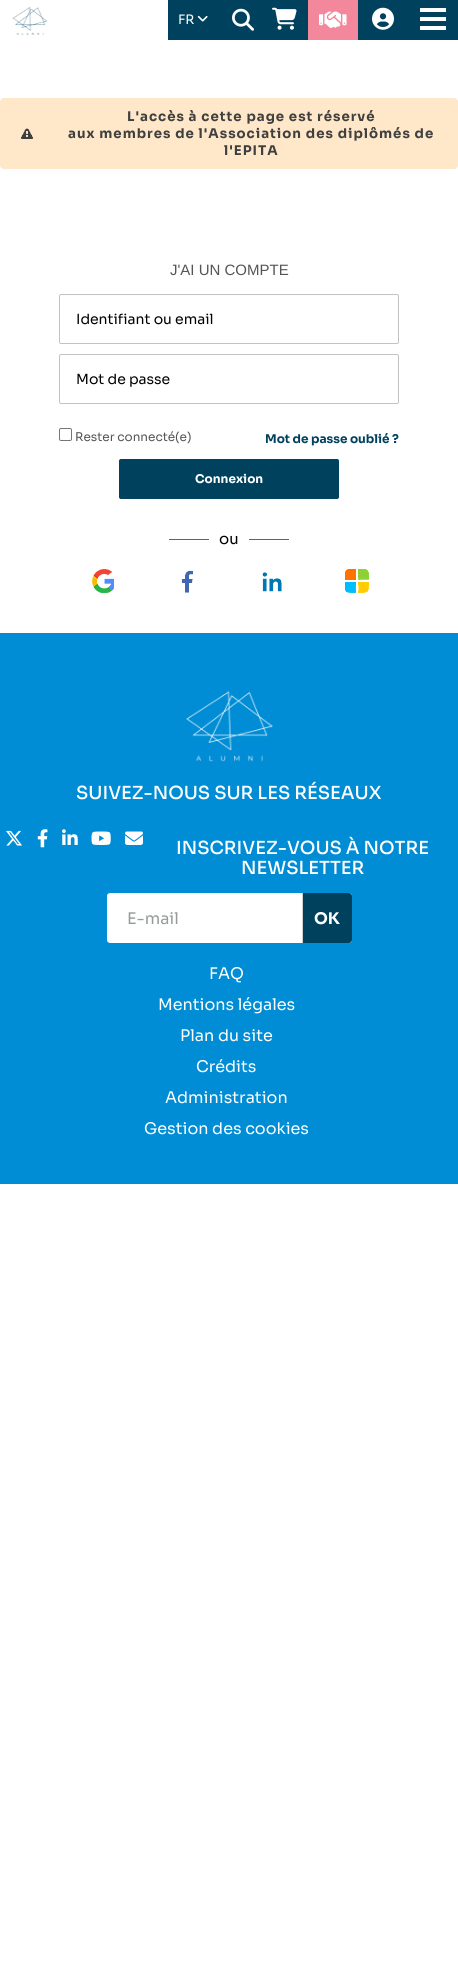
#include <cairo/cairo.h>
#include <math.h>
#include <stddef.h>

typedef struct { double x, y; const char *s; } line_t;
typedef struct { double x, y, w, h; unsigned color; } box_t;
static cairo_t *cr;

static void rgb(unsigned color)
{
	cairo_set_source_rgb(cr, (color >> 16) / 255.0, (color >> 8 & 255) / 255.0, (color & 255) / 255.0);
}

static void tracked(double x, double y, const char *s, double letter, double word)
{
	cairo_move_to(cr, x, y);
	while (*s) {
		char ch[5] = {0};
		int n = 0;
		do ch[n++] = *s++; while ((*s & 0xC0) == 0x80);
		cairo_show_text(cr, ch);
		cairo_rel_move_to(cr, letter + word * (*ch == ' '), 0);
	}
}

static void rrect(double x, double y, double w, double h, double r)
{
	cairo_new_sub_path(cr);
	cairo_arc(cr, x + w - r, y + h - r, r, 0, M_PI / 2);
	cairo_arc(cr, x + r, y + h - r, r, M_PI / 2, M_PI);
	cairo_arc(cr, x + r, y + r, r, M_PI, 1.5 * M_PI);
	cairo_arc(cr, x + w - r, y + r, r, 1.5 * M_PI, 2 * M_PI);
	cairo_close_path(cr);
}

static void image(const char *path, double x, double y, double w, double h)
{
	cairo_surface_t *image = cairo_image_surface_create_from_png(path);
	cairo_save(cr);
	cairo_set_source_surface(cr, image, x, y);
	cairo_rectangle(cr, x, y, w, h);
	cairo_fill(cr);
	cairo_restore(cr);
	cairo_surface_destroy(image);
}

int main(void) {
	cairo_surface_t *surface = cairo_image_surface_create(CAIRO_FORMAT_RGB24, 458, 1969);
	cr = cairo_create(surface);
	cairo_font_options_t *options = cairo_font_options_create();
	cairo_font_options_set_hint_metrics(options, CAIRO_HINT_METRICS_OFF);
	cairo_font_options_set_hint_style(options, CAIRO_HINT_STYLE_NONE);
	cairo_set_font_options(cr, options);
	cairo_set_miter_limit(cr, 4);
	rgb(0xffffff);
	cairo_paint(cr);
	rgb(0x00415e);
	cairo_rectangle(cr, 168, 0, 290, 40);
	cairo_fill(cr);
	image("img/1.png", 12, 7, 36, 28);
	image("img/2.png", 197, 15, 11, 7);
	image("img/3.png", 232, 8, 22, 23);
	image("img/4.png", 272, 7, 25, 23);
	rgb(0xf3889c);
	cairo_rectangle(cr, 308, 0, 50, 40);
	cairo_fill(cr);
	image("img/5.png", 319, 11, 28, 17);
	image("img/6.png", 372, 7, 22, 23);
	{
		static const box_t items[] = {
			{420, 8, 26, 4, 0xffffff},
			{420, 17, 26, 4, 0xffffff},
			{420, 26, 26, 4, 0xffffff},
		};
		for (size_t i = 0; i < sizeof items / sizeof *items; i++) {
			rgb(items[i].color);
			cairo_rectangle(cr, items[i].x, items[i].y, items[i].w, items[i].h);
			cairo_fill(cr);
		}
	}
	rgb(0xffe7c9);
	rrect(0, 98, 458, 71, 4);
	cairo_fill(cr);
	image("img/7.png", 21, 128, 12, 11);
	rrect(59.5, 294.5, 339, 49, 1.5);
	rgb(0xc3c3c3);
	cairo_set_line_width(cr, 1);
	cairo_stroke(cr);
	rrect(59.5, 354.5, 339, 49, 1.5);
	cairo_stroke(cr);
	rrect(59.5, 428.5, 12, 12, 1.5);
	rgb(0x767676);
	cairo_stroke(cr);
	rgb(0x00415e);
	rrect(119.5, 459.5, 219, 39, 1.5);
	cairo_fill_preserve(cr);
	cairo_stroke(cr);
	rgb(0x626262);
	cairo_rectangle(cr, 169, 539, 120, 1);
	cairo_fill(cr);
	rgb(0xffffff);
	cairo_rectangle(cr, 209, 539, 40, 1);
	cairo_fill(cr);
	image("img/8.png", 92, 569, 22, 24);
	image("img/9.png", 181, 570, 12, 23);
	image("img/10.png", 262, 572, 20, 20);
	image("img/11.png", 345, 569, 24, 24);
	rgb(0x008dd5);
	cairo_rectangle(cr, 0, 633, 458, 551);
	cairo_fill(cr);
	image("img/12.png", 186, 691, 87, 71);
	image("img/13.png", 6, 830, 16, 16);
	image("img/14.png", 37, 829, 11, 19);
	image("img/15.png", 62, 829, 16, 16);
	image("img/16.png", 91, 831, 20, 14);
	image("img/17.png", 125, 831, 18, 14);
	rgb(0xffffff);
	rrect(107, 893, 245, 50, 3);
	cairo_fill(cr);
	rgb(0x00415e);
	cairo_new_path(cr);
	cairo_move_to(cr, 302, 893);
	cairo_line_to(cr, 349, 893);
	cairo_curve_to(cr, 350.5, 893, 352, 894.5, 352, 896);
	cairo_line_to(cr, 352, 940);
	cairo_curve_to(cr, 352, 941.5, 350.5, 943, 349, 943);
	cairo_line_to(cr, 302, 943);
	cairo_close_path(cr);
	cairo_fill(cr);
	rgb(0xd0d0d0);
	cairo_rectangle(cr, 302, 893, 1, 50);
	cairo_fill(cr);
	cairo_select_font_face(cr, "Sora", CAIRO_FONT_SLANT_NORMAL, CAIRO_FONT_WEIGHT_NORMAL);
	cairo_set_font_size(cr, 13);
	rgb(0xffffff);
	cairo_move_to(cr, 178, 24);
	cairo_show_text(cr, "FR");
	cairo_select_font_face(cr, "Sora", CAIRO_FONT_SLANT_NORMAL, CAIRO_FONT_WEIGHT_BOLD);
	cairo_set_font_size(cr, 13.3);
	rgb(0x3f3f3f);
	{
		static const line_t items[] = {
			{127, 121, "L'accès à cette page est réservé"},
			{68, 138, "aux membres de l'Association des diplômés de"},
			{224, 155, "l'EPITA"},
		};
		for (size_t i = 0; i < sizeof items / sizeof *items; i++) {
			tracked(items[i].x, items[i].y, items[i].s, 1, 0);
		}
	}
	cairo_select_font_face(cr, "Liberation Sans", CAIRO_FONT_SLANT_NORMAL, CAIRO_FONT_WEIGHT_NORMAL);
	cairo_set_font_size(cr, 15);
	rgb(0x555555);
	cairo_move_to(cr, 170, 275);
	cairo_show_text(cr, "J'AI UN COMPTE");
	cairo_select_font_face(cr, "Sora", CAIRO_FONT_SLANT_NORMAL, CAIRO_FONT_WEIGHT_NORMAL);
	cairo_set_font_size(cr, 14);
	rgb(0x000000);
	cairo_move_to(cr, 76, 324);
	cairo_show_text(cr, "Identifiant ou email");
	cairo_move_to(cr, 76, 384);
	cairo_show_text(cr, "Mot de passe");
	cairo_set_font_size(cr, 12);
	rgb(0x555555);
	cairo_move_to(cr, 75, 441);
	cairo_show_text(cr, "Rester connecté(e)");
	cairo_select_font_face(cr, "Sora", CAIRO_FONT_SLANT_NORMAL, CAIRO_FONT_WEIGHT_BOLD);
	rgb(0x00415e);
	cairo_move_to(cr, 265, 443);
	cairo_show_text(cr, "Mot de passe oublié ?");
	rgb(0xffffff);
	cairo_move_to(cr, 195, 483);
	cairo_show_text(cr, "Connexion");
	cairo_select_font_face(cr, "Sora", CAIRO_FONT_SLANT_NORMAL, CAIRO_FONT_WEIGHT_NORMAL);
	cairo_set_font_size(cr, 15);
	rgb(0x000000);
	cairo_move_to(cr, 219, 544);
	cairo_show_text(cr, "ou");
	cairo_select_font_face(cr, "Sora Medium", CAIRO_FONT_SLANT_NORMAL, CAIRO_FONT_WEIGHT_NORMAL);
	cairo_set_font_size(cr, 18);
	rgb(0xffffff);
	{
		static const line_t items[] = {
			{76, 799, "SUIVEZ-NOUS SUR LES RÉSEAUX"},
			{176, 854, "INSCRIVEZ-VOUS À NOTRE"},
			{241, 874, "NEWSLETTER"},
		};
		for (size_t i = 0; i < sizeof items / sizeof *items; i++) {
			cairo_move_to(cr, items[i].x, items[i].y);
			cairo_show_text(cr, items[i].s);
		}
	}
	cairo_select_font_face(cr, "Sora", CAIRO_FONT_SLANT_NORMAL, CAIRO_FONT_WEIGHT_NORMAL);
	cairo_set_font_size(cr, 16);
	rgb(0x969a9b);
	cairo_move_to(cr, 127, 924);
	cairo_show_text(cr, "E-mail");
	cairo_select_font_face(cr, "Sora", CAIRO_FONT_SLANT_NORMAL, CAIRO_FONT_WEIGHT_BOLD);
	rgb(0xffffff);
	cairo_move_to(cr, 314, 924);
	cairo_show_text(cr, "OK");
	cairo_select_font_face(cr, "Sora", CAIRO_FONT_SLANT_NORMAL, CAIRO_FONT_WEIGHT_NORMAL);
	{
		static const line_t items[] = {
			{209, 979, "FAQ"},
			{158, 1010, "Mentions légales"},
			{180, 1041, "Plan du site"},
			{196, 1072, "Crédits"},
			{165, 1103, "Administration"},
			{144, 1134, "Gestion des cookies"},
		};
		for (size_t i = 0; i < sizeof items / sizeof *items; i++) {
			cairo_move_to(cr, items[i].x, items[i].y);
			cairo_show_text(cr, items[i].s);
		}
	}
	cairo_surface_write_to_png(surface, "page.png");
	cairo_font_options_destroy(options);
	cairo_destroy(cr);
	cairo_surface_destroy(surface);
	return 0;
}
